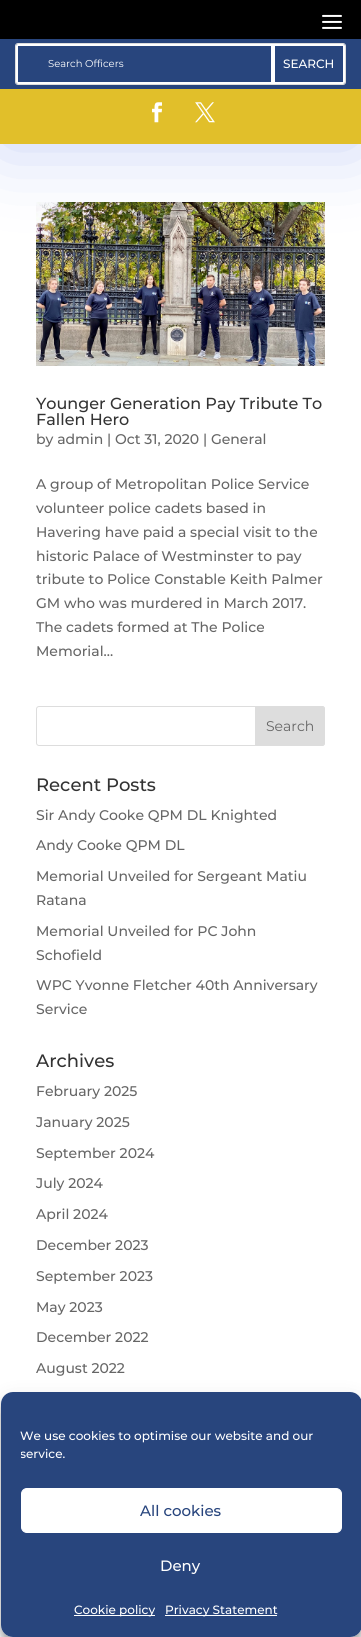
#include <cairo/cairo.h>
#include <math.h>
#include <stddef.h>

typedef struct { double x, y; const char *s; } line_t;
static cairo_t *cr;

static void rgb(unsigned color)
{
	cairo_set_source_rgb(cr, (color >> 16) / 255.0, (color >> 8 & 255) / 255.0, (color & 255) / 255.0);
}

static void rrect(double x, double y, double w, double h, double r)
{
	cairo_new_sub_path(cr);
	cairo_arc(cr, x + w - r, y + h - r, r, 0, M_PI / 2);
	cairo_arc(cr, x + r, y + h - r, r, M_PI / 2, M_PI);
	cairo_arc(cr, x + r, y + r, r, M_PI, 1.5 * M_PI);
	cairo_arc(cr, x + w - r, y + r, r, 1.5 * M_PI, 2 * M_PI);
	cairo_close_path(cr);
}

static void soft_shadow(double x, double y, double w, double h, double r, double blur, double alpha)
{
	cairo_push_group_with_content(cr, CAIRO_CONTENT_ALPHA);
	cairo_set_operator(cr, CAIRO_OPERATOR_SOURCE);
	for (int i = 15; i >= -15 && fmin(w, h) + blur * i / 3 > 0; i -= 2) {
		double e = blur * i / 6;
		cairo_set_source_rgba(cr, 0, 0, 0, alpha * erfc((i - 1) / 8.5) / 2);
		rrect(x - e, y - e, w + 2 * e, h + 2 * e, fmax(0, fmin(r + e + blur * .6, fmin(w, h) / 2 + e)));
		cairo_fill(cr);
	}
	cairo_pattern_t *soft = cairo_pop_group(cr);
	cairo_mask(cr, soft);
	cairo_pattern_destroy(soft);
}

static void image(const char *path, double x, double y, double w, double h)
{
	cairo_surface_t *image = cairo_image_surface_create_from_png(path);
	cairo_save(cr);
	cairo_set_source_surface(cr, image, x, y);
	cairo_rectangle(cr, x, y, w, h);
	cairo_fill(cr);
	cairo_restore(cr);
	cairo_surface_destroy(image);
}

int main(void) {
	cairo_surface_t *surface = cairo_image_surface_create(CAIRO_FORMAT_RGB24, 361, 1637);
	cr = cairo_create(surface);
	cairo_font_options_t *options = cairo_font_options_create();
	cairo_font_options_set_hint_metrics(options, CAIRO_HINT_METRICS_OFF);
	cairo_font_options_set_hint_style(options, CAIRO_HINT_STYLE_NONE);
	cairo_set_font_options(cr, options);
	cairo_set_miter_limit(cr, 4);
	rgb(0xffffff);
	cairo_paint(cr);
	image("img/4.png", 36, 202, 289, 164);
	rgb(0x0d3cd8);
	soft_shadow(0, 2, 361, 144, 0, 40, 0.24);
	rgb(0x000000);
	cairo_rectangle(cr, 0, 0, 361, 39);
	cairo_fill(cr);
	image("img/1.png", 322, 14, 20, 15);
	rgb(0x28457d);
	cairo_rectangle(cr, 0, 39, 361, 50);
	cairo_fill(cr);
	rrect(15.5, 43.5, 330, 41, 2.5);
	rgb(0xdddddd);
	cairo_set_line_width(cr, 1);
	cairo_stroke(cr);
	rgb(0xffffff);
	cairo_set_fill_rule(cr, CAIRO_FILL_RULE_EVEN_ODD);
	cairo_new_path(cr);
	cairo_move_to(cr, 18, 44);
	cairo_curve_to(cr, 17, 44, 16, 45, 16, 46);
	cairo_line_to(cr, 16, 82);
	cairo_curve_to(cr, 16, 83, 17, 84, 18, 84);
	cairo_line_to(cr, 273, 84);
	cairo_line_to(cr, 273, 44);
	cairo_close_path(cr);
	cairo_move_to(cr, 18, 46);
	cairo_line_to(cr, 18, 82);
	cairo_line_to(cr, 271, 82);
	cairo_line_to(cr, 271, 46);
	cairo_close_path(cr);
	cairo_fill(cr);
	cairo_new_path(cr);
	cairo_move_to(cr, 273, 44);
	cairo_line_to(cr, 273, 84);
	cairo_line_to(cr, 343, 84);
	cairo_curve_to(cr, 344, 84, 345, 83, 345, 82);
	cairo_line_to(cr, 345, 46);
	cairo_curve_to(cr, 345, 45, 344, 44, 343, 44);
	cairo_close_path(cr);
	cairo_move_to(cr, 275, 46);
	cairo_line_to(cr, 275, 82);
	cairo_line_to(cr, 343, 82);
	cairo_line_to(cr, 343, 46);
	cairo_close_path(cr);
	cairo_fill(cr);
	rgb(0xe1bf2a);
	cairo_rectangle(cr, 0, 89, 361, 55);
	cairo_fill(cr);
	image("img/2.png", 152, 102, 10, 21);
	image("img/3.png", 195, 102, 20, 21);
	rrect(36.5, 706.5, 288, 39, 2.5);
	rgb(0xdddddd);
	cairo_stroke(cr);
	cairo_new_path(cr);
	cairo_move_to(cr, 255.5, 706.5);
	cairo_line_to(cr, 322, 706.5);
	cairo_curve_to(cr, 323.5, 706.5, 324.5, 707.5, 324.5, 709);
	cairo_line_to(cr, 324.5, 743);
	cairo_curve_to(cr, 324.5, 744.5, 323.5, 745.5, 322, 745.5);
	cairo_line_to(cr, 255.5, 745.5);
	cairo_close_path(cr);
	cairo_fill_preserve(cr);
	cairo_stroke(cr);
	cairo_save(cr);
	cairo_new_path(cr);
	cairo_move_to(cr, 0, 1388);
	cairo_line_to(cr, 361, 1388);
	cairo_line_to(cr, 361, 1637);
	cairo_line_to(cr, 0, 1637);
	cairo_close_path(cr);
	cairo_move_to(cr, 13, 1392);
	cairo_line_to(cr, 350, 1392);
	cairo_curve_to(cr, 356.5, 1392, 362, 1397.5, 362, 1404);
	cairo_line_to(cr, 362, 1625);
	cairo_curve_to(cr, 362, 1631.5, 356.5, 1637, 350, 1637);
	cairo_line_to(cr, 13, 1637);
	cairo_curve_to(cr, 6.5, 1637, 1, 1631.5, 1, 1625);
	cairo_line_to(cr, 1, 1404);
	cairo_curve_to(cr, 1, 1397.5, 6.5, 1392, 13, 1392);
	cairo_close_path(cr);
	cairo_clip(cr);
	rgb(0x000000);
	soft_shadow(1, 1398, 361, 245, 12, 3, 0.23);
	cairo_restore(cr);
	cairo_save(cr);
	cairo_new_path(cr);
	cairo_move_to(cr, 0, 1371);
	cairo_line_to(cr, 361, 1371);
	cairo_line_to(cr, 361, 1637);
	cairo_line_to(cr, 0, 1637);
	cairo_close_path(cr);
	cairo_move_to(cr, 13, 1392);
	cairo_line_to(cr, 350, 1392);
	cairo_curve_to(cr, 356.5, 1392, 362, 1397.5, 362, 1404);
	cairo_line_to(cr, 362, 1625);
	cairo_curve_to(cr, 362, 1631.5, 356.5, 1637, 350, 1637);
	cairo_line_to(cr, 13, 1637);
	cairo_curve_to(cr, 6.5, 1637, 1, 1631.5, 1, 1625);
	cairo_line_to(cr, 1, 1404);
	cairo_curve_to(cr, 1, 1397.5, 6.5, 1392, 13, 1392);
	cairo_close_path(cr);
	cairo_clip(cr);
	rgb(0x000000);
	soft_shadow(1, 1402, 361, 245, 12, 10, 0.19);
	cairo_restore(cr);
	rgb(0x28457d);
	rrect(1, 1392, 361, 245, 12);
	cairo_fill(cr);
	rgb(0xffffff);
	rrect(21.5, 1488.5, 320, 44, 5.5);
	cairo_fill_preserve(cr);
	cairo_stroke(cr);
	cairo_rectangle(cr, 74, 1615, 81, 1);
	cairo_fill(cr);
	cairo_rectangle(cr, 165, 1615, 112, 1);
	cairo_fill(cr);
	cairo_select_font_face(cr, "Montserrat", CAIRO_FONT_SLANT_NORMAL, CAIRO_FONT_WEIGHT_NORMAL);
	cairo_set_font_size(cr, 10);
	cairo_move_to(cr, 48, 67);
	cairo_show_text(cr, "Search Officers");
	cairo_select_font_face(cr, "Montserrat Medium", CAIRO_FONT_SLANT_NORMAL, CAIRO_FONT_WEIGHT_NORMAL);
	cairo_set_font_size(cr, 12);
	cairo_move_to(cr, 283, 68);
	cairo_show_text(cr, "SEARCH");
	cairo_set_font_size(cr, 16);
	rgb(0x333333);
	cairo_move_to(cr, 36, 409);
	cairo_show_text(cr, "Younger Generation Pay Tribute To");
	cairo_move_to(cr, 36, 425);
	cairo_show_text(cr, "Fallen Hero");
	cairo_set_font_size(cr, 14);
	rgb(0x666666);
	{
		static const line_t items[] = {
			{36, 444, "by admin | Oct 31, 2020 | General"},
			{36, 489, "A group of Metropolitan Police Service"},
			{36, 513, "volunteer police cadets based in"},
			{36, 537, "Havering have paid a special visit to the"},
			{36, 561, "historic Palace of Westminster to pay"},
			{36, 584, "tribute to Police Constable Keith Palmer"},
			{36, 608, "GM who was murdered in March 2017."},
			{36, 632, "The cadets formed at The Police"},
			{36, 656, "Memorial..."},
		};
		for (size_t i = 0; i < sizeof items / sizeof *items; i++) {
			cairo_move_to(cr, items[i].x, items[i].y);
			cairo_show_text(cr, items[i].s);
		}
	}
	cairo_select_font_face(cr, "Montserrat", CAIRO_FONT_SLANT_NORMAL, CAIRO_FONT_WEIGHT_NORMAL);
	cairo_move_to(cr, 266, 731);
	cairo_show_text(cr, "Search");
	cairo_select_font_face(cr, "Montserrat Medium", CAIRO_FONT_SLANT_NORMAL, CAIRO_FONT_WEIGHT_NORMAL);
	cairo_set_font_size(cr, 18);
	rgb(0x333333);
	cairo_move_to(cr, 36, 791);
	cairo_show_text(cr, "Recent Posts");
	cairo_set_font_size(cr, 14);
	rgb(0x666666);
	{
		static const line_t items[] = {
			{36, 820, "Sir Andy Cooke QPM DL Knighted"},
			{36, 850, "Andy Cooke QPM DL"},
			{36, 881, "Memorial Unveiled for Sergeant Matiu"},
			{36, 905, "Ratana"},
			{36, 936, "Memorial Unveiled for PC John"},
			{36, 960, "Schofield"},
			{36, 990, "WPC Yvonne Fletcher 40th Anniversary"},
			{36, 1014, "Service"},
		};
		for (size_t i = 0; i < sizeof items / sizeof *items; i++) {
			cairo_move_to(cr, items[i].x, items[i].y);
			cairo_show_text(cr, items[i].s);
		}
	}
	cairo_set_font_size(cr, 18);
	rgb(0x333333);
	cairo_move_to(cr, 36, 1067);
	cairo_show_text(cr, "Archives");
	cairo_set_font_size(cr, 14);
	rgb(0x666666);
	{
		static const line_t items[] = {
			{36, 1096, "February 2025"},
			{36, 1127, "January 2025"},
			{36, 1158, "September 2024"},
			{36, 1188, "July 2024"},
			{36, 1219, "April 2024"},
			{36, 1250, "December 2023"},
			{36, 1281, "September 2023"},
			{36, 1312, "May 2023"},
			{36, 1342, "December 2022"},
			{36, 1373, "August 2022"},
		};
		for (size_t i = 0; i < sizeof items / sizeof *items; i++) {
			cairo_move_to(cr, items[i].x, items[i].y);
			cairo_show_text(cr, items[i].s);
		}
	}
	cairo_set_font_size(cr, 12);
	rgb(0xffffff);
	cairo_move_to(cr, 20, 1440);
	cairo_show_text(cr, "We use cookies to optimise our website and our");
	cairo_save(cr);
	cairo_set_fill_rule(cr, CAIRO_FILL_RULE_WINDING);
	cairo_rectangle(cr, 21, 1427, 321, 41);
	cairo_clip(cr);
	cairo_move_to(cr, 20, 1458);
	cairo_show_text(cr, "service.");
	cairo_restore(cr);
	cairo_set_font_size(cr, 15);
	rgb(0x28457d);
	cairo_move_to(cr, 140, 1516);
	cairo_show_text(cr, "All cookies");
	rgb(0xffffff);
	cairo_move_to(cr, 160, 1571);
	cairo_show_text(cr, "Deny");
	cairo_set_font_size(cr, 12);
	cairo_move_to(cr, 74, 1614);
	cairo_show_text(cr, "Cookie policy");
	cairo_move_to(cr, 165, 1614);
	cairo_show_text(cr, "Privacy Statement");
	cairo_surface_write_to_png(surface, "page.png");
	cairo_font_options_destroy(options);
	cairo_destroy(cr);
	cairo_surface_destroy(surface);
	return 0;
}
